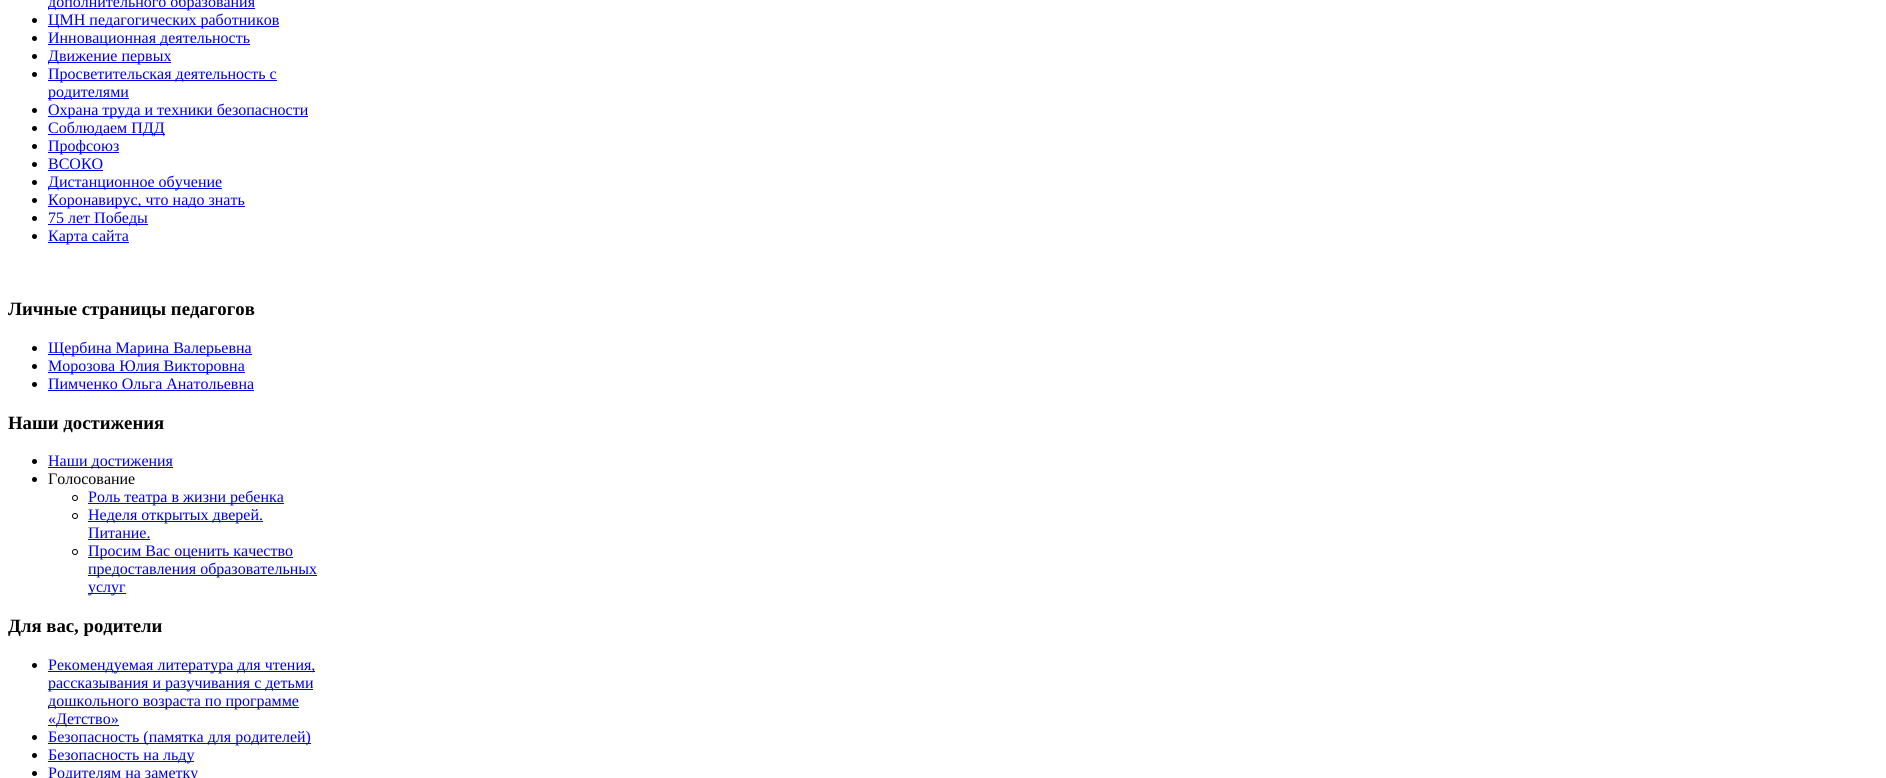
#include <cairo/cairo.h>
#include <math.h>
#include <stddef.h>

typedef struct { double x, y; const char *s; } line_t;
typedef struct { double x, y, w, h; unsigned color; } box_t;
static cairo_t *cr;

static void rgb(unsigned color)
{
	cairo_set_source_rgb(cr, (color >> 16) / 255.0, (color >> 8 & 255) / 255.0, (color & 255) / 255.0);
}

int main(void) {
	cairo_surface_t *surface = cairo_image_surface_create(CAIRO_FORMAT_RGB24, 1886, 778);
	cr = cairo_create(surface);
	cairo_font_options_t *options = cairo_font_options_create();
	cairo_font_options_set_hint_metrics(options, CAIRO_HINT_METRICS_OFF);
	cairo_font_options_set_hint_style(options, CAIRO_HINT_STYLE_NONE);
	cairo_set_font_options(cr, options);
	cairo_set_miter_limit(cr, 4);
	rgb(0xffffff);
	cairo_paint(cr);
	rgb(0x0000ee);
	cairo_rectangle(cr, 48, 8, 207, 1);
	cairo_fill(cr);
	rgb(0x000000);
	cairo_arc(cr, 34.5, 20.5, 2.5, 0, 2 * M_PI);
	cairo_fill(cr);
	rgb(0x0000ee);
	cairo_rectangle(cr, 48, 26, 231, 1);
	cairo_fill(cr);
	rgb(0x000000);
	cairo_arc(cr, 34.5, 38.5, 2.5, 0, 2 * M_PI);
	cairo_fill(cr);
	rgb(0x0000ee);
	cairo_rectangle(cr, 48, 44, 202, 1);
	cairo_fill(cr);
	rgb(0x000000);
	cairo_arc(cr, 34.5, 56.5, 2.5, 0, 2 * M_PI);
	cairo_fill(cr);
	rgb(0x0000ee);
	cairo_rectangle(cr, 48, 62, 123, 1);
	cairo_fill(cr);
	rgb(0x000000);
	cairo_arc(cr, 34.5, 74.5, 2.5, 0, 2 * M_PI);
	cairo_fill(cr);
	rgb(0x0000ee);
	cairo_rectangle(cr, 48, 80, 229, 1);
	cairo_fill(cr);
	cairo_rectangle(cr, 48, 98, 81, 1);
	cairo_fill(cr);
	rgb(0x000000);
	cairo_arc(cr, 34.5, 110.5, 2.5, 0, 2 * M_PI);
	cairo_fill(cr);
	rgb(0x0000ee);
	cairo_rectangle(cr, 48, 116, 260, 1);
	cairo_fill(cr);
	rgb(0x000000);
	cairo_arc(cr, 34.5, 128.5, 2.5, 0, 2 * M_PI);
	cairo_fill(cr);
	rgb(0x0000ee);
	cairo_rectangle(cr, 48, 134, 117, 1);
	cairo_fill(cr);
	rgb(0x000000);
	cairo_arc(cr, 34.5, 146.5, 2.5, 0, 2 * M_PI);
	cairo_fill(cr);
	rgb(0x0000ee);
	cairo_rectangle(cr, 48, 152, 71, 1);
	cairo_fill(cr);
	rgb(0x000000);
	cairo_arc(cr, 34.5, 164.5, 2.5, 0, 2 * M_PI);
	cairo_fill(cr);
	rgb(0x0000ee);
	cairo_rectangle(cr, 48, 170, 55, 1);
	cairo_fill(cr);
	rgb(0x000000);
	cairo_arc(cr, 34.5, 182.5, 2.5, 0, 2 * M_PI);
	cairo_fill(cr);
	rgb(0x0000ee);
	cairo_rectangle(cr, 48, 188, 174, 1);
	cairo_fill(cr);
	rgb(0x000000);
	cairo_arc(cr, 34.5, 200.5, 2.5, 0, 2 * M_PI);
	cairo_fill(cr);
	rgb(0x0000ee);
	cairo_rectangle(cr, 48, 206, 197, 1);
	cairo_fill(cr);
	rgb(0x000000);
	cairo_arc(cr, 34.5, 218.5, 2.5, 0, 2 * M_PI);
	cairo_fill(cr);
	rgb(0x0000ee);
	cairo_rectangle(cr, 48, 224, 100, 1);
	cairo_fill(cr);
	rgb(0x000000);
	cairo_arc(cr, 34.5, 236.5, 2.5, 0, 2 * M_PI);
	cairo_fill(cr);
	rgb(0x0000ee);
	cairo_rectangle(cr, 48, 242, 81, 1);
	cairo_fill(cr);
	rgb(0x000000);
	cairo_arc(cr, 34.5, 348.5, 2.5, 0, 2 * M_PI);
	cairo_fill(cr);
	rgb(0x0000ee);
	cairo_rectangle(cr, 48, 354, 204, 1);
	cairo_fill(cr);
	rgb(0x000000);
	cairo_arc(cr, 34.5, 366.5, 2.5, 0, 2 * M_PI);
	cairo_fill(cr);
	rgb(0x0000ee);
	cairo_rectangle(cr, 48, 372, 197, 1);
	cairo_fill(cr);
	rgb(0x000000);
	cairo_arc(cr, 34.5, 384.5, 2.5, 0, 2 * M_PI);
	cairo_fill(cr);
	rgb(0x0000ee);
	cairo_rectangle(cr, 48, 390, 206, 1);
	cairo_fill(cr);
	rgb(0x000000);
	cairo_arc(cr, 34.5, 461.5, 2.5, 0, 2 * M_PI);
	cairo_fill(cr);
	rgb(0x0000ee);
	cairo_rectangle(cr, 48, 467, 125, 1);
	cairo_fill(cr);
	rgb(0x000000);
	cairo_arc(cr, 34.5, 479.5, 2.5, 0, 2 * M_PI);
	cairo_fill(cr);
	cairo_arc(cr, 75, 498, 2.5, 0, 2 * M_PI);
	cairo_set_line_width(cr, 1);
	cairo_stroke(cr);
	rgb(0x0000ee);
	cairo_rectangle(cr, 88, 503, 196, 1);
	cairo_fill(cr);
	cairo_arc(cr, 75, 516, 2.5, 0, 2 * M_PI);
	rgb(0x000000);
	cairo_stroke(cr);
	rgb(0x0000ee);
	cairo_rectangle(cr, 88, 521, 175, 1);
	cairo_fill(cr);
	cairo_rectangle(cr, 88, 539, 62, 1);
	cairo_fill(cr);
	cairo_arc(cr, 75, 552, 2.5, 0, 2 * M_PI);
	rgb(0x000000);
	cairo_stroke(cr);
	{
		static const box_t items[] = {
			{88, 557, 205, 1, 0x0000ee},
			{88, 575, 229, 1, 0x0000ee},
			{88, 593, 38, 1, 0x0000ee},
		};
		for (size_t i = 0; i < sizeof items / sizeof *items; i++) {
			rgb(items[i].color);
			cairo_rectangle(cr, items[i].x, items[i].y, items[i].w, items[i].h);
			cairo_fill(cr);
		}
	}
	rgb(0x000000);
	cairo_arc(cr, 34.5, 665.5, 2.5, 0, 2 * M_PI);
	cairo_fill(cr);
	{
		static const box_t items[] = {
			{48, 671, 267, 1, 0x0000ee},
			{48, 689, 265, 1, 0x0000ee},
			{48, 707, 251, 1, 0x0000ee},
			{48, 725, 71, 1, 0x0000ee},
		};
		for (size_t i = 0; i < sizeof items / sizeof *items; i++) {
			rgb(items[i].color);
			cairo_rectangle(cr, items[i].x, items[i].y, items[i].w, items[i].h);
			cairo_fill(cr);
		}
	}
	rgb(0x000000);
	cairo_arc(cr, 34.5, 737.5, 2.5, 0, 2 * M_PI);
	cairo_fill(cr);
	rgb(0x0000ee);
	cairo_rectangle(cr, 48, 743, 263, 1);
	cairo_fill(cr);
	rgb(0x000000);
	cairo_arc(cr, 34.5, 755.5, 2.5, 0, 2 * M_PI);
	cairo_fill(cr);
	rgb(0x0000ee);
	cairo_rectangle(cr, 48, 761, 146, 1);
	cairo_fill(cr);
	rgb(0x000000);
	cairo_arc(cr, 34.5, 773.5, 2.5, 0, 2 * M_PI);
	cairo_fill(cr);
	cairo_select_font_face(cr, "Liberation Serif", CAIRO_FONT_SLANT_NORMAL, CAIRO_FONT_WEIGHT_NORMAL);
	cairo_set_font_size(cr, 16);
	rgb(0x0000ee);
	{
		static const line_t items[] = {
			{48, 7, "дополнительного образования"},
			{48, 25, "ЦМН педагогических работников"},
			{48, 43, "Инновационная деятельность"},
			{48, 61, "Движение первых"},
			{48, 79, "Просветительская деятельность с"},
			{48, 97, "родителями"},
			{48, 115, "Охрана труда и техники безопасности"},
			{48, 133, "Соблюдаем ПДД"},
			{48, 151, "Профсоюз"},
			{48, 169, "ВСОКО"},
			{48, 187, "Дистанционное обучение"},
			{48, 205, "Коронавирус, что надо знать"},
			{48, 223, "75 лет Победы"},
			{48, 241, "Карта сайта"},
		};
		for (size_t i = 0; i < sizeof items / sizeof *items; i++) {
			cairo_move_to(cr, items[i].x, items[i].y);
			cairo_show_text(cr, items[i].s);
		}
	}
	cairo_select_font_face(cr, "Liberation Serif", CAIRO_FONT_SLANT_NORMAL, CAIRO_FONT_WEIGHT_BOLD);
	cairo_set_font_size(cr, 18.75);
	rgb(0x000000);
	cairo_move_to(cr, 8, 315);
	cairo_show_text(cr, "Личные страницы педагогов");
	cairo_select_font_face(cr, "Liberation Serif", CAIRO_FONT_SLANT_NORMAL, CAIRO_FONT_WEIGHT_NORMAL);
	cairo_set_font_size(cr, 16);
	rgb(0x0000ee);
	{
		static const line_t items[] = {
			{48, 353, "Щербина Марина Валерьевна"},
			{48, 371, "Морозова Юлия Викторовна"},
			{48, 389, "Пимченко Ольга Анатольевна"},
		};
		for (size_t i = 0; i < sizeof items / sizeof *items; i++) {
			cairo_move_to(cr, items[i].x, items[i].y);
			cairo_show_text(cr, items[i].s);
		}
	}
	cairo_select_font_face(cr, "Liberation Serif", CAIRO_FONT_SLANT_NORMAL, CAIRO_FONT_WEIGHT_BOLD);
	cairo_set_font_size(cr, 18.75);
	rgb(0x000000);
	cairo_move_to(cr, 8, 429);
	cairo_show_text(cr, "Наши достижения");
	cairo_select_font_face(cr, "Liberation Serif", CAIRO_FONT_SLANT_NORMAL, CAIRO_FONT_WEIGHT_NORMAL);
	cairo_set_font_size(cr, 16);
	rgb(0x0000ee);
	cairo_move_to(cr, 48, 466);
	cairo_show_text(cr, "Наши достижения");
	rgb(0x000000);
	cairo_move_to(cr, 48, 484);
	cairo_show_text(cr, "Голосование");
	rgb(0x0000ee);
	{
		static const line_t items[] = {
			{88, 502, "Роль театра в жизни ребенка"},
			{88, 520, "Неделя открытых дверей."},
			{88, 538, "Питание."},
			{88, 556, "Просим Вас оценить качество"},
			{88, 574, "предоставления образовательных"},
			{88, 592, "услуг"},
		};
		for (size_t i = 0; i < sizeof items / sizeof *items; i++) {
			cairo_move_to(cr, items[i].x, items[i].y);
			cairo_show_text(cr, items[i].s);
		}
	}
	cairo_select_font_face(cr, "Liberation Serif", CAIRO_FONT_SLANT_NORMAL, CAIRO_FONT_WEIGHT_BOLD);
	cairo_set_font_size(cr, 18.75);
	rgb(0x000000);
	cairo_move_to(cr, 8, 632);
	cairo_show_text(cr, "Для вас, родители");
	cairo_select_font_face(cr, "Liberation Serif", CAIRO_FONT_SLANT_NORMAL, CAIRO_FONT_WEIGHT_NORMAL);
	cairo_set_font_size(cr, 16);
	rgb(0x0000ee);
	{
		static const line_t items[] = {
			{48, 670, "Рекомендуемая литература для чтения,"},
			{48, 688, "рассказывания и разучивания с детьми"},
			{48, 706, "дошкольного возраста по программе"},
			{48, 724, "«Детство»"},
			{48, 742, "Безопасность (памятка для родителей)"},
			{48, 760, "Безопасность на льду"},
			{48, 778, "Родителям на заметку"},
		};
		for (size_t i = 0; i < sizeof items / sizeof *items; i++) {
			cairo_move_to(cr, items[i].x, items[i].y);
			cairo_show_text(cr, items[i].s);
		}
	}
	cairo_surface_write_to_png(surface, "page.png");
	cairo_font_options_destroy(options);
	cairo_destroy(cr);
	cairo_surface_destroy(surface);
	return 0;
}
